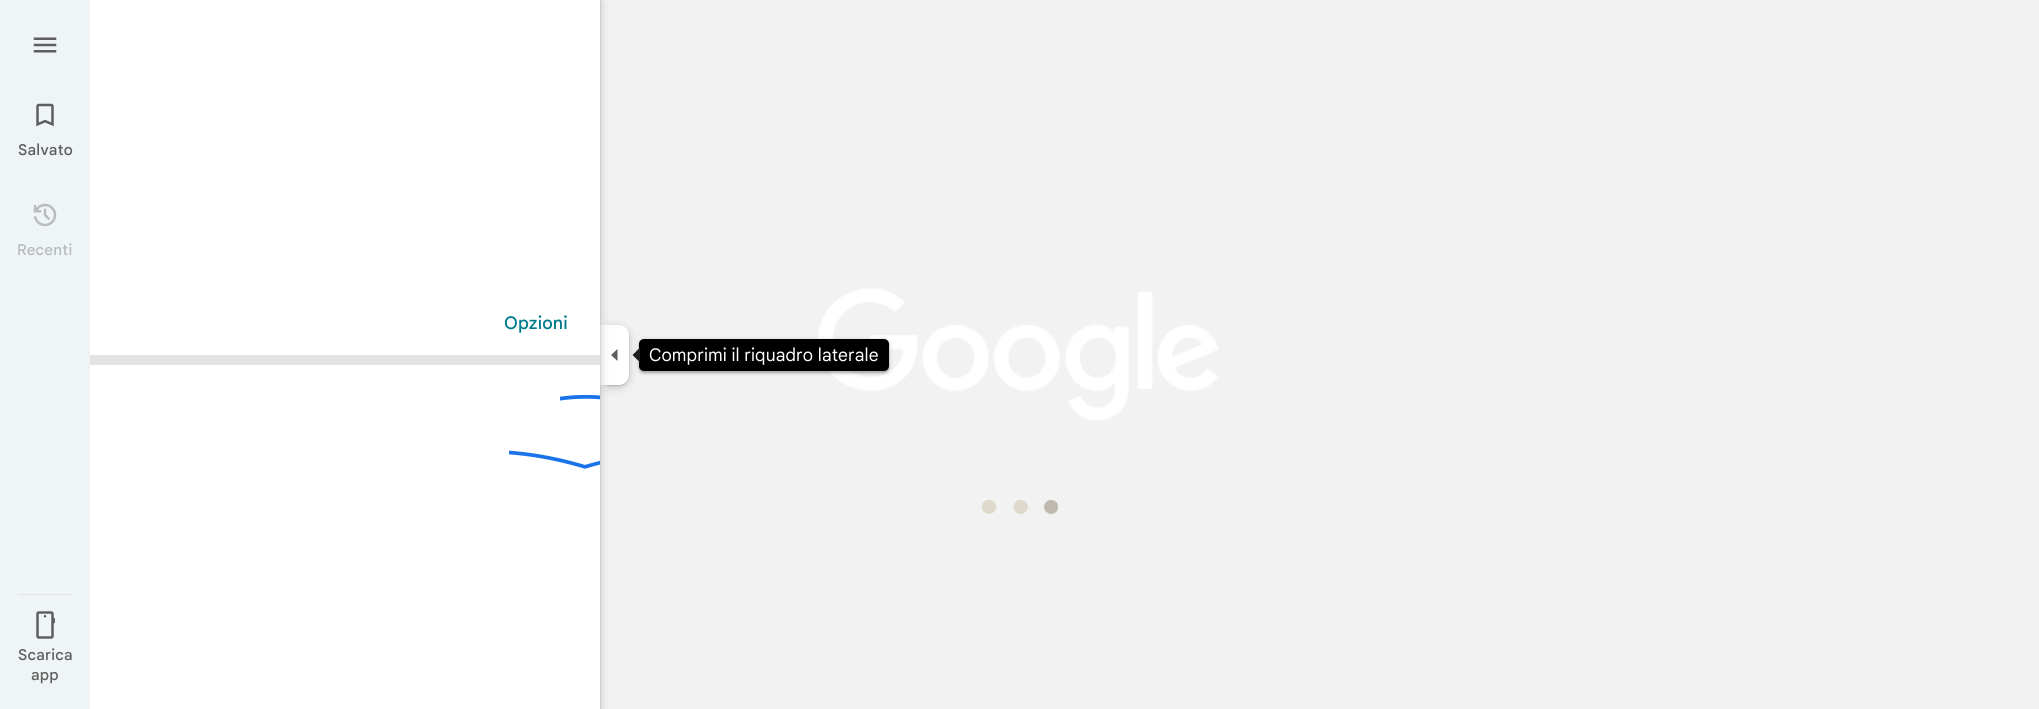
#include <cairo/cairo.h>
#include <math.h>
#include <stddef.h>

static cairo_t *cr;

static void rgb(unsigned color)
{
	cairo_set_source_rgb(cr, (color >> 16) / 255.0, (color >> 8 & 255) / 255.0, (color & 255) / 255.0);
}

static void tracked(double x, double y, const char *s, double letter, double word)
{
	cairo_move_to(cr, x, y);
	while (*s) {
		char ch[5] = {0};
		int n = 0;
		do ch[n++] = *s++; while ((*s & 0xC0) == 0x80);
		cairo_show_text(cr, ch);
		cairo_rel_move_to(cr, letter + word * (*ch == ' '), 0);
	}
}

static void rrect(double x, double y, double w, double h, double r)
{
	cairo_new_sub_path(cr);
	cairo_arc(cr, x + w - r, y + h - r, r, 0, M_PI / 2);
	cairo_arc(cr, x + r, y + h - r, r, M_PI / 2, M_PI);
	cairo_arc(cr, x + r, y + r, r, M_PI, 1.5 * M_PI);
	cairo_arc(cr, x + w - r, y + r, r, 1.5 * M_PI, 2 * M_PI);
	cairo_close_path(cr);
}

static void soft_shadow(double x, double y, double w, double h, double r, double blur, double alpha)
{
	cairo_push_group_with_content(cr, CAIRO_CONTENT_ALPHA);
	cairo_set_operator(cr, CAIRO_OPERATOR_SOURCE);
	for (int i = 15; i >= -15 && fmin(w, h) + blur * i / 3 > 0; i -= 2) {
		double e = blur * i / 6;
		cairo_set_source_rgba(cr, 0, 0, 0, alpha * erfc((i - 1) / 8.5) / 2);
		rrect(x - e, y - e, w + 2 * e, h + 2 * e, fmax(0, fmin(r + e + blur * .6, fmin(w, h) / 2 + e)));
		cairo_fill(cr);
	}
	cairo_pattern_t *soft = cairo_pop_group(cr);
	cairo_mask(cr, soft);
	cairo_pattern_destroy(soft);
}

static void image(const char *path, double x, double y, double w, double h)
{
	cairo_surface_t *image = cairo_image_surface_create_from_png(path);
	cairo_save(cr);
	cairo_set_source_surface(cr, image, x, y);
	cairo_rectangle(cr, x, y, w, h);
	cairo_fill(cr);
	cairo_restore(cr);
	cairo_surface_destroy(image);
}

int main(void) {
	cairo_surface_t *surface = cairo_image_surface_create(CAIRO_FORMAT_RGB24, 2039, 709);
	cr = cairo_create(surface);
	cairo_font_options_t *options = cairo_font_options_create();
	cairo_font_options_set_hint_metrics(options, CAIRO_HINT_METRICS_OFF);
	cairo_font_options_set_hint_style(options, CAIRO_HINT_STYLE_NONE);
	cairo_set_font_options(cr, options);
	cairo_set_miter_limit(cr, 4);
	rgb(0xf2f2f2);
	cairo_paint(cr);
	rgb(0x3c4043);
	soft_shadow(598, 325, 33, 65, 13, 4, 0.15);
	soft_shadow(600, 326, 29, 60, 10, 1, 0.3);
	rgb(0xffffff);
	cairo_new_path(cr);
	cairo_move_to(cr, 600, 325);
	cairo_line_to(cr, 619, 325);
	cairo_curve_to(cr, 624.5, 325, 629, 329.5, 629, 335);
	cairo_line_to(cr, 629, 375);
	cairo_curve_to(cr, 629, 380.5, 624.5, 385, 619, 385);
	cairo_line_to(cr, 600, 385);
	cairo_close_path(cr);
	cairo_fill(cr);
	rgb(0x5e5e5e);
	cairo_new_path(cr);
	cairo_move_to(cr, 617.5, 361);
	cairo_line_to(cr, 611, 355);
	cairo_line_to(cr, 617.5, 349);
	cairo_close_path(cr);
	cairo_fill(cr);
	rgb(0x3c4043);
	soft_shadow(88, 0, 515, 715, 0, 4, 0.15);
	soft_shadow(90, 1, 510, 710, 0, 1, 0.3);
	rgb(0xeff5f6);
	cairo_rectangle(cr, 0, 0, 90, 709);
	cairo_fill(cr);
	image("img/1.png", 33, 37, 24, 16);
	image("img/2.png", 36, 103, 18, 24);
	image("img/3.png", 33, 203, 24, 24);
	rgb(0xe3e3e3);
	cairo_rectangle(cr, 18, 594, 55, 1);
	cairo_fill(cr);
	image("img/4.png", 36, 611, 19, 28);
	rgb(0xffffff);
	cairo_rectangle(cr, 90, 0, 510, 709);
	cairo_fill(cr);
	rgb(0xe3e3e3);
	cairo_rectangle(cr, 90, 355, 510, 10);
	cairo_fill(cr);
	cairo_save(cr);
	cairo_rectangle(cr, 560, 395, 40, 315);
	cairo_clip(cr);
	cairo_new_path(cr);
	cairo_move_to(cr, 406, 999.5);
	cairo_curve_to(cr, 335, 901, 317.5, 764.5, 343, 647.5);
	cairo_curve_to(cr, 360, 568, 399.5, 488, 466, 438.5);
	cairo_curve_to(cr, 514.5, 402, 575, 387, 634.5, 403.5);
	cairo_curve_to(cr, 688, 418.5, 732, 456, 764, 500.5);
	cairo_curve_to(cr, 863, 638.5, 863, 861.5, 764, 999.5);
	rgb(0x1a73e8);
	cairo_set_line_width(cr, 3.8);
	cairo_stroke(cr);
	cairo_restore(cr);
	cairo_save(cr);
	cairo_rectangle(cr, 330, 395, 255, 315);
	cairo_clip(cr);
	cairo_new_path(cr);
	cairo_move_to(cr, 509, 452.5);
	cairo_curve_to(cr, 590, 458.5, 676, 496, 747.5, 556);
	cairo_curve_to(cr, 819.5, 616.5, 871, 694.5, 891.5, 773.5);
	cairo_curve_to(cr, 911.5, 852.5, 898.5, 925.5, 855.5, 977);
	cairo_curve_to(cr, 812.5, 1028.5, 742.5, 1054, 661, 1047.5);
	rgb(0x1a73e8);
	cairo_set_line_width(cr, 3.7);
	cairo_stroke(cr);
	cairo_restore(cr);
	cairo_save(cr);
	cairo_rectangle(cr, 585, 395, 15, 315);
	cairo_clip(cr);
	cairo_new_path(cr);
	cairo_move_to(cr, 509, 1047.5);
	cairo_curve_to(cr, 427.5, 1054, 357.5, 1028.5, 314.5, 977);
	cairo_curve_to(cr, 271.5, 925.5, 258.5, 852.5, 278.5, 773.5);
	cairo_curve_to(cr, 299, 694.5, 350.5, 616.5, 422.5, 556);
	cairo_curve_to(cr, 494, 496, 580, 458.5, 661, 452.5);
	rgb(0x1a73e8);
	cairo_set_line_width(cr, 3.7);
	cairo_stroke(cr);
	cairo_restore(cr);
	image("img/5.png", 817, 288, 402, 133);
	rgb(0x3c4043);
	soft_shadow(638, 339, 252, 35, 6, 2, 0.15);
	soft_shadow(639, 340, 250, 33, 5, 1, 0.3);
	rgb(0x000000);
	rrect(639, 339, 250, 32, 5);
	cairo_fill(cr);
	rgb(0x1f1f1f);
	cairo_new_path(cr);
	cairo_move_to(cr, 640, 347.5);
	cairo_line_to(cr, 640, 362.5);
	cairo_line_to(cr, 632.5, 355);
	cairo_close_path(cr);
	cairo_fill(cr);
	image("img/6.png", 982, 500, 76, 14);
	cairo_select_font_face(cr, "Google Sans Medium", CAIRO_FONT_SLANT_NORMAL, CAIRO_FONT_WEIGHT_NORMAL);
	cairo_set_font_size(cr, 15);
	rgb(0x5e5e5e);
	tracked(18, 155, "Salvato", 0.25, 0);
	rgb(0xb8bcbc);
	tracked(17, 255, "Recenti", 0.25, 0);
	rgb(0x5e5e5e);
	tracked(18, 660, "Scarica", 0.25, 0);
	tracked(31, 680, "app", 0.25, 0);
	cairo_set_font_size(cr, 17.5);
	rgb(0x007b8b);
	tracked(504, 329, "Opzioni", 0.1, 0);
	cairo_select_font_face(cr, "Google Sans", CAIRO_FONT_SLANT_NORMAL, CAIRO_FONT_WEIGHT_NORMAL);
	rgb(0xffffff);
	tracked(649, 361, "Comprimi il riquadro laterale", 0.1, 0);
	cairo_surface_write_to_png(surface, "page.png");
	cairo_font_options_destroy(options);
	cairo_destroy(cr);
	cairo_surface_destroy(surface);
	return 0;
}
